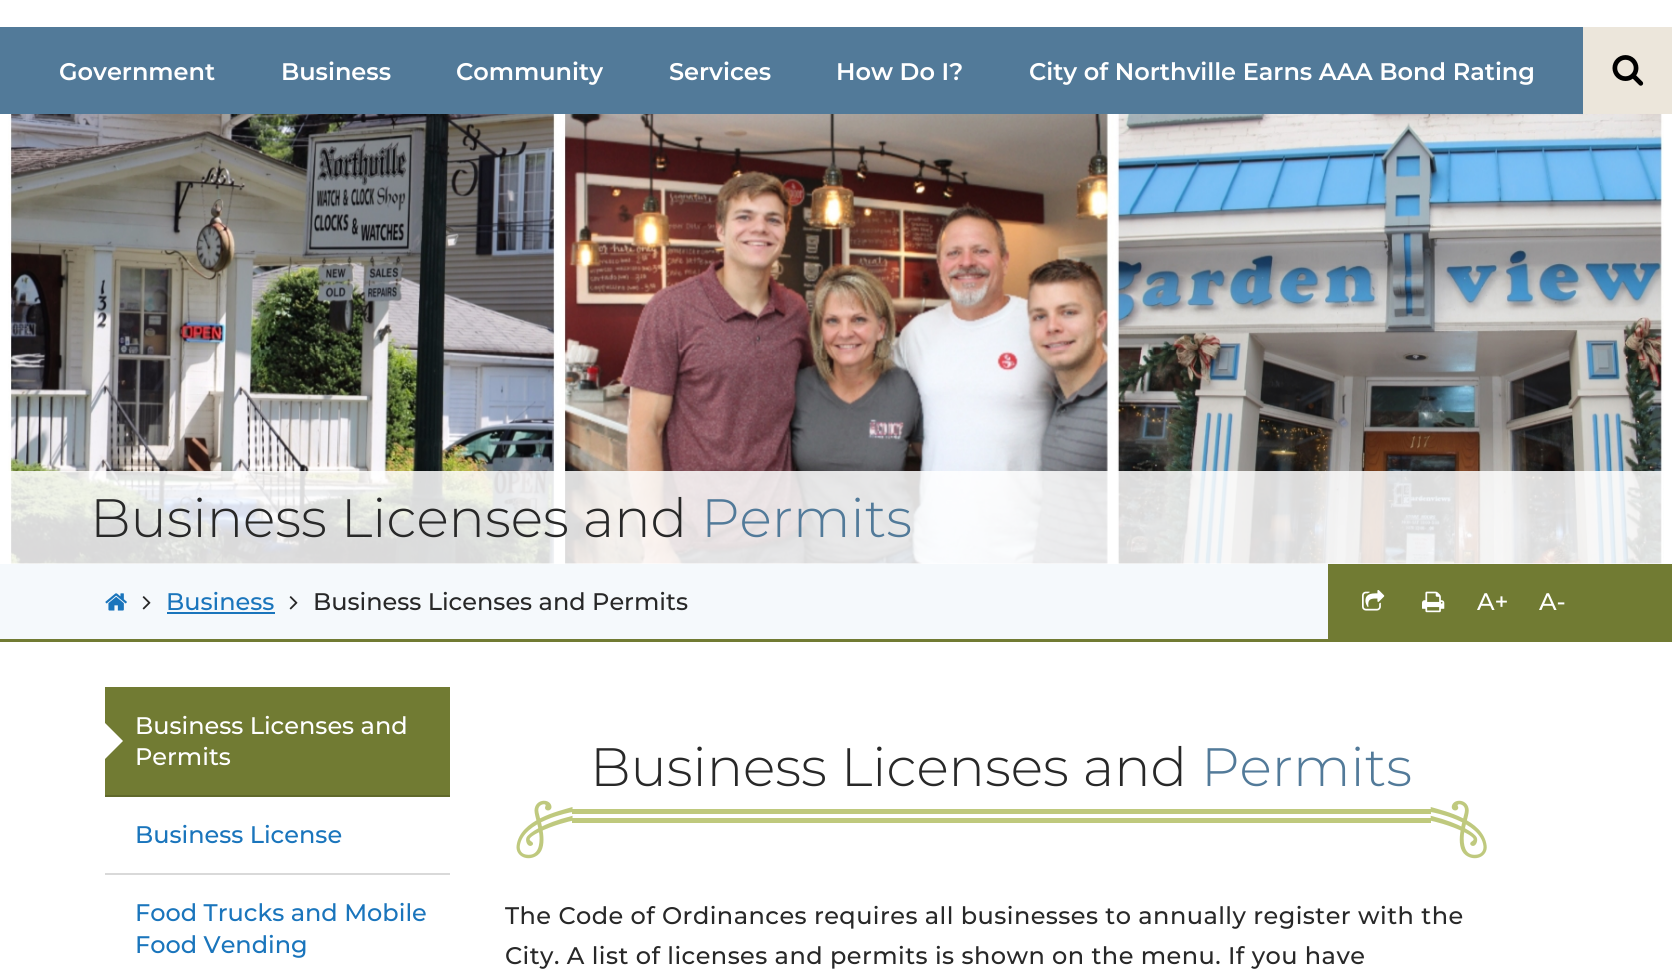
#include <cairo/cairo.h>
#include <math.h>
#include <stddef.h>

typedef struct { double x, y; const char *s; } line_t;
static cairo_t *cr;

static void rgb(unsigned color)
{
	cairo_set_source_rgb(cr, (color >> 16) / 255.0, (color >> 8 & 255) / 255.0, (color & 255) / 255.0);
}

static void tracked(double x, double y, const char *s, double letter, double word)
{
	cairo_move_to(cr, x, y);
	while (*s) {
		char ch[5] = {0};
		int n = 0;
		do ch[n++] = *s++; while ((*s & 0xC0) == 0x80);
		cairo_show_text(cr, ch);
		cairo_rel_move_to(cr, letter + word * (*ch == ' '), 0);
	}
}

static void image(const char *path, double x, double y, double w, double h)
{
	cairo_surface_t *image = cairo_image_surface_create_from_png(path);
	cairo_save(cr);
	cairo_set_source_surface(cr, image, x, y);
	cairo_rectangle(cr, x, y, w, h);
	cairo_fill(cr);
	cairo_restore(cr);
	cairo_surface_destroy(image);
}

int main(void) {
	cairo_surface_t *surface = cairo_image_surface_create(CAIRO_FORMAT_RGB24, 1672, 973);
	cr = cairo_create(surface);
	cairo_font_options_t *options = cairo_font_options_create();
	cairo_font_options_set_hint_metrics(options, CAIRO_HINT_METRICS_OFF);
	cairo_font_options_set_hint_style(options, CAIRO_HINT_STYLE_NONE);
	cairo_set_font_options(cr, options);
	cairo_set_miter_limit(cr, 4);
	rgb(0xffffff);
	cairo_paint(cr);
	rgb(0x527a99);
	cairo_rectangle(cr, 0, 27, 1583, 87);
	cairo_fill(cr);
	rgb(0xece6db);
	cairo_rectangle(cr, 1583, 27, 89, 87);
	cairo_fill(cr);
	image("img/1.png", 1612, 55, 32, 31);
	image("img/2.png", 8, 114, 1656, 450);
	cairo_set_source_rgba(cr, 1, 1, 1, 0.85);
	cairo_rectangle(cr, 8, 471, 1655, 93);
	cairo_fill(cr);
	rgb(0xf5f9fc);
	cairo_rectangle(cr, 0, 564, 1328, 75);
	cairo_fill(cr);
	rgb(0x717b33);
	cairo_rectangle(cr, 0, 639, 1672, 3);
	cairo_fill(cr);
	image("img/3.png", 105, 593, 22, 18);
	image("img/4.png", 142, 596, 9, 14);
	rgb(0x1a75bc);
	cairo_rectangle(cr, 167, 612, 108, 2);
	cairo_fill(cr);
	image("img/4.png", 289, 596, 9, 14);
	rgb(0x717b33);
	cairo_rectangle(cr, 1328, 564, 344, 75);
	cairo_fill(cr);
	image("img/5.png", 1362, 590, 23, 21);
	image("img/6.png", 1422, 591, 23, 22);
	cairo_rectangle(cr, 105, 687, 345, 108);
	cairo_fill(cr);
	rgb(0x60692b);
	cairo_rectangle(cr, 105, 795, 345, 2);
	cairo_fill(cr);
	rgb(0xffffff);
	cairo_new_path(cr);
	cairo_move_to(cr, 105, 759);
	cairo_line_to(cr, 105, 723);
	cairo_line_to(cr, 123, 741);
	cairo_close_path(cr);
	cairo_fill(cr);
	rgb(0xd9d9d9);
	cairo_rectangle(cr, 105, 873, 345, 2);
	cairo_fill(cr);
	image("img/7.png", 516, 800, 57, 59);
	rgb(0xbfc97d);
	cairo_rectangle(cr, 572, 809, 859, 5);
	cairo_fill(cr);
	cairo_rectangle(cr, 572, 818, 859, 5);
	cairo_fill(cr);
	image("img/8.png", 1430, 800, 57, 59);
	cairo_select_font_face(cr, "Montserrat SemiBold", CAIRO_FONT_SLANT_NORMAL, CAIRO_FONT_WEIGHT_NORMAL);
	cairo_set_font_size(cr, 24);
	rgb(0xffffff);
	{
		static const line_t items[] = {
			{59, 80, "Government"},
			{281, 80, "Business"},
			{456, 80, "Community"},
			{669, 80, "Services"},
			{836, 80, "How Do I?"},
			{1029, 80, "City of Northville Earns AAA Bond Rating"},
		};
		for (size_t i = 0; i < sizeof items / sizeof *items; i++) {
			cairo_move_to(cr, items[i].x, items[i].y);
			cairo_show_text(cr, items[i].s);
		}
	}
	cairo_select_font_face(cr, "Montserrat Light", CAIRO_FONT_SLANT_NORMAL, CAIRO_FONT_WEIGHT_NORMAL);
	cairo_set_font_size(cr, 54);
	rgb(0x282828);
	cairo_move_to(cr, 90, 537);
	cairo_show_text(cr, "Business Licenses and");
	rgb(0x527a99);
	cairo_move_to(cr, 701, 537);
	cairo_show_text(cr, "Permits");
	cairo_select_font_face(cr, "Montserrat Medium", CAIRO_FONT_SLANT_NORMAL, CAIRO_FONT_WEIGHT_NORMAL);
	cairo_set_font_size(cr, 24);
	rgb(0x1a75bc);
	cairo_move_to(cr, 166, 610);
	cairo_show_text(cr, "Business");
	rgb(0x282828);
	cairo_move_to(cr, 313, 610);
	cairo_show_text(cr, "Business Licenses and Permits");
	rgb(0xffffff);
	{
		static const line_t items[] = {
			{1477, 610, "A+"},
			{1539, 610, "A-"},
			{135, 734, "Business Licenses and"},
			{135, 765, "Permits"},
		};
		for (size_t i = 0; i < sizeof items / sizeof *items; i++) {
			cairo_move_to(cr, items[i].x, items[i].y);
			cairo_show_text(cr, items[i].s);
		}
	}
	rgb(0x1a75bc);
	{
		static const line_t items[] = {
			{135, 843, "Business License"},
			{135, 921, "Food Trucks and Mobile"},
			{135, 953, "Food Vending"},
		};
		for (size_t i = 0; i < sizeof items / sizeof *items; i++) {
			cairo_move_to(cr, items[i].x, items[i].y);
			cairo_show_text(cr, items[i].s);
		}
	}
	cairo_select_font_face(cr, "Montserrat Light", CAIRO_FONT_SLANT_NORMAL, CAIRO_FONT_WEIGHT_NORMAL);
	cairo_set_font_size(cr, 54);
	rgb(0x282828);
	cairo_move_to(cr, 590, 786);
	cairo_show_text(cr, "Business Licenses and");
	rgb(0x527a99);
	cairo_move_to(cr, 1201, 786);
	cairo_show_text(cr, "Permits");
	cairo_select_font_face(cr, "Montserrat Medium", CAIRO_FONT_SLANT_NORMAL, CAIRO_FONT_WEIGHT_NORMAL);
	cairo_set_font_size(cr, 24);
	rgb(0x282828);
	tracked(505, 924, "The Code of Ordinances requires all businesses to annually register with the", 0.45, 0);
	tracked(505, 964, "City. A list of licenses and permits is shown on the menu. If you have", 0.45, 0);
	cairo_surface_write_to_png(surface, "page.png");
	cairo_font_options_destroy(options);
	cairo_destroy(cr);
	cairo_surface_destroy(surface);
	return 0;
}
